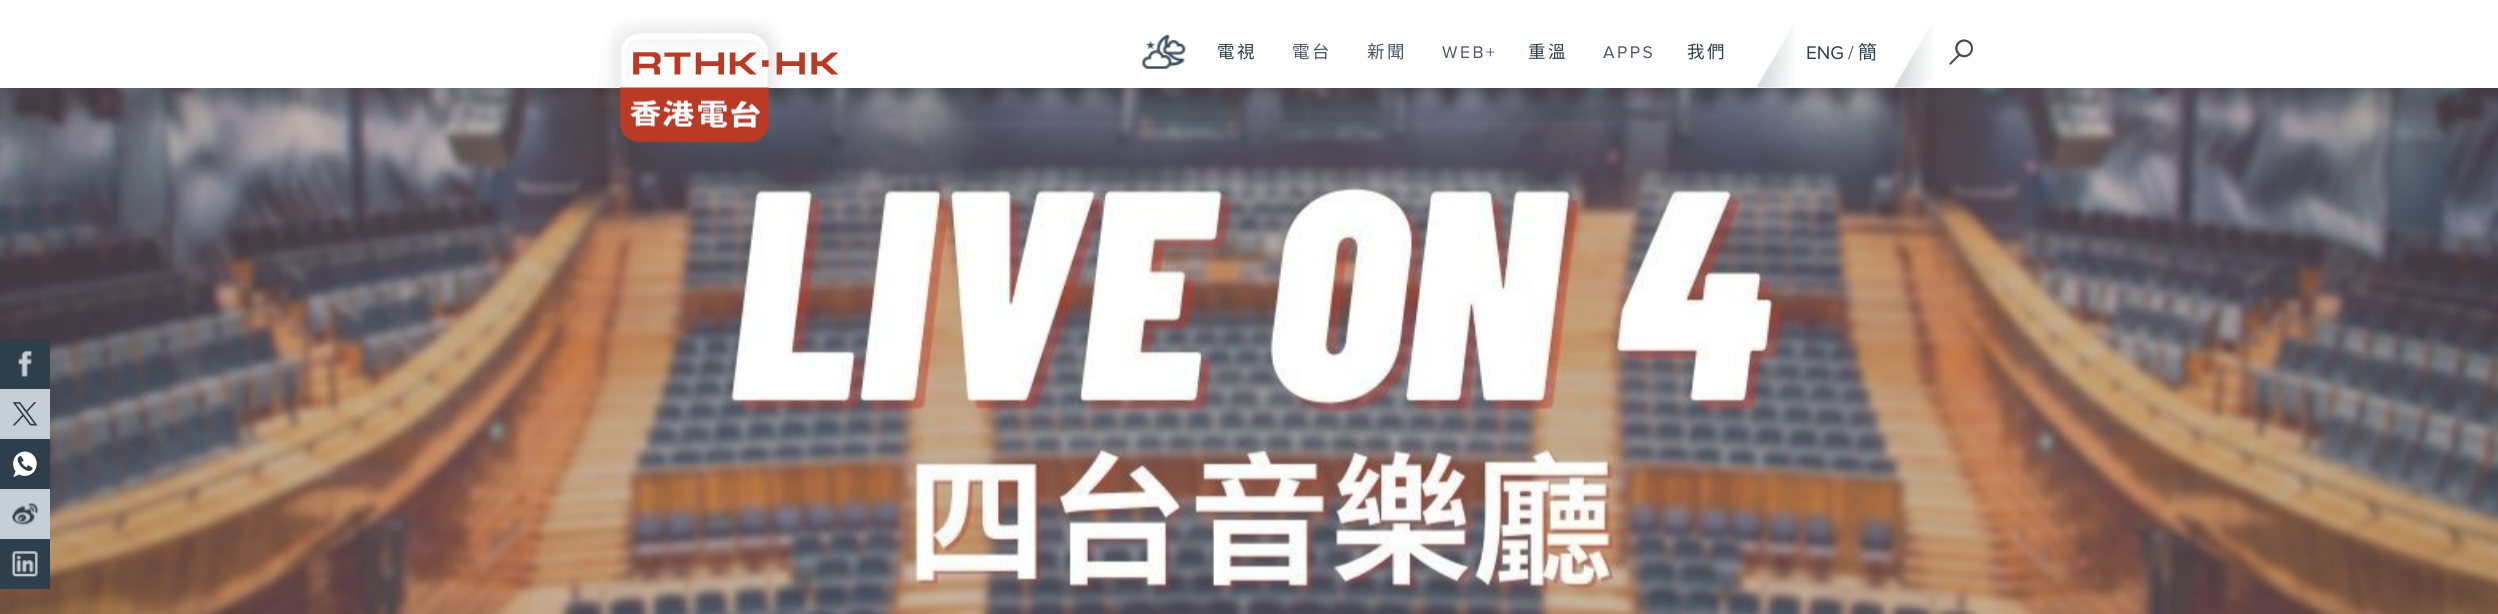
#include <cairo/cairo.h>
#include <math.h>
#include <stddef.h>

static cairo_t *cr;

static void rgb(unsigned color)
{
	cairo_set_source_rgb(cr, (color >> 16) / 255.0, (color >> 8 & 255) / 255.0, (color & 255) / 255.0);
}

static void tracked(double x, double y, const char *s, double letter, double word)
{
	cairo_move_to(cr, x, y);
	while (*s) {
		char ch[5] = {0};
		int n = 0;
		do ch[n++] = *s++; while ((*s & 0xC0) == 0x80);
		cairo_show_text(cr, ch);
		cairo_rel_move_to(cr, letter + word * (*ch == ' '), 0);
	}
}

static void image(const char *path, double x, double y, double w, double h)
{
	cairo_surface_t *image = cairo_image_surface_create_from_png(path);
	cairo_save(cr);
	cairo_set_source_surface(cr, image, x, y);
	cairo_rectangle(cr, x, y, w, h);
	cairo_fill(cr);
	cairo_restore(cr);
	cairo_surface_destroy(image);
}

int main(void) {
	cairo_surface_t *surface = cairo_image_surface_create(CAIRO_FORMAT_RGB24, 2498, 614);
	cr = cairo_create(surface);
	cairo_font_options_t *options = cairo_font_options_create();
	cairo_font_options_set_hint_metrics(options, CAIRO_HINT_METRICS_OFF);
	cairo_font_options_set_hint_style(options, CAIRO_HINT_STYLE_NONE);
	cairo_set_font_options(cr, options);
	cairo_set_miter_limit(cr, 4);
	rgb(0xffffff);
	cairo_paint(cr);
	image("img/1.png", 597, 18, 242, 70);
	image("img/8.png", 0, 88, 2498, 526);
	image("img/7.png", 591, 88, 1326, 33);
	image("img/2.png", 590, 88, 209, 55);
	image("img/3.png", 1142, 34, 44, 35);
	image("img/4.png", 1756, 24, 39, 64);
	image("img/5.png", 1893, 24, 40, 64);
	image("img/6.png", 1949, 39, 24, 26);
	rgb(0x2e3e4a);
	cairo_rectangle(cr, 0, 339, 50, 50);
	cairo_fill(cr);
	image("img/9.png", 18, 350, 14, 27);
	rgb(0xc6cfd6);
	cairo_rectangle(cr, 0, 389, 50, 50);
	cairo_fill(cr);
	image("img/10.png", 12, 402, 26, 24);
	rgb(0x2e3e4a);
	cairo_rectangle(cr, 0, 439, 50, 50);
	cairo_fill(cr);
	image("img/11.png", 13, 451, 24, 26);
	rgb(0xc6cfd6);
	cairo_rectangle(cr, 0, 489, 50, 50);
	cairo_fill(cr);
	image("img/12.png", 12, 502, 26, 24);
	rgb(0x2e3e4a);
	cairo_rectangle(cr, 0, 539, 50, 50);
	cairo_fill(cr);
	image("img/13.png", 12, 551, 26, 26);
	cairo_select_font_face(cr, "Noto Sans CJK HK", CAIRO_FONT_SLANT_NORMAL, CAIRO_FONT_WEIGHT_NORMAL);
	cairo_set_font_size(cr, 17.5);
	tracked(1217, 58, "電視", 2.5, 0);
	rgb(0x4e5569);
	tracked(1292, 58, "電台", 2.5, 0);
	tracked(1367, 58, "新聞", 2.5, 0);
	cairo_select_font_face(cr, "Proxima Nova", CAIRO_FONT_SLANT_NORMAL, CAIRO_FONT_WEIGHT_NORMAL);
	tracked(1442, 58, "WEB+", 2.5, 0);
	cairo_select_font_face(cr, "Noto Sans CJK HK", CAIRO_FONT_SLANT_NORMAL, CAIRO_FONT_WEIGHT_NORMAL);
	rgb(0x2e3e4a);
	tracked(1528, 58, "重溫", 2.5, 0);
	cairo_select_font_face(cr, "Proxima Nova", CAIRO_FONT_SLANT_NORMAL, CAIRO_FONT_WEIGHT_NORMAL);
	rgb(0x4e5569);
	tracked(1603, 58, "APPS", 2.5, 0);
	cairo_select_font_face(cr, "Noto Sans CJK HK", CAIRO_FONT_SLANT_NORMAL, CAIRO_FONT_WEIGHT_NORMAL);
	rgb(0x2e3e4a);
	tracked(1687, 58, "我們", 2.5, 0);
	cairo_select_font_face(cr, "Proxima Nova", CAIRO_FONT_SLANT_NORMAL, CAIRO_FONT_WEIGHT_NORMAL);
	cairo_set_font_size(cr, 19);
	cairo_move_to(cr, 1806, 59);
	cairo_show_text(cr, "ENG");
	rgb(0x4e5569);
	cairo_move_to(cr, 1848, 59);
	cairo_show_text(cr, "/");
	cairo_select_font_face(cr, "Noto Sans CJK HK", CAIRO_FONT_SLANT_NORMAL, CAIRO_FONT_WEIGHT_NORMAL);
	rgb(0x2e3e4a);
	cairo_move_to(cr, 1858, 59);
	cairo_show_text(cr, "簡");
	cairo_surface_write_to_png(surface, "page.png");
	cairo_font_options_destroy(options);
	cairo_destroy(cr);
	cairo_surface_destroy(surface);
	return 0;
}
